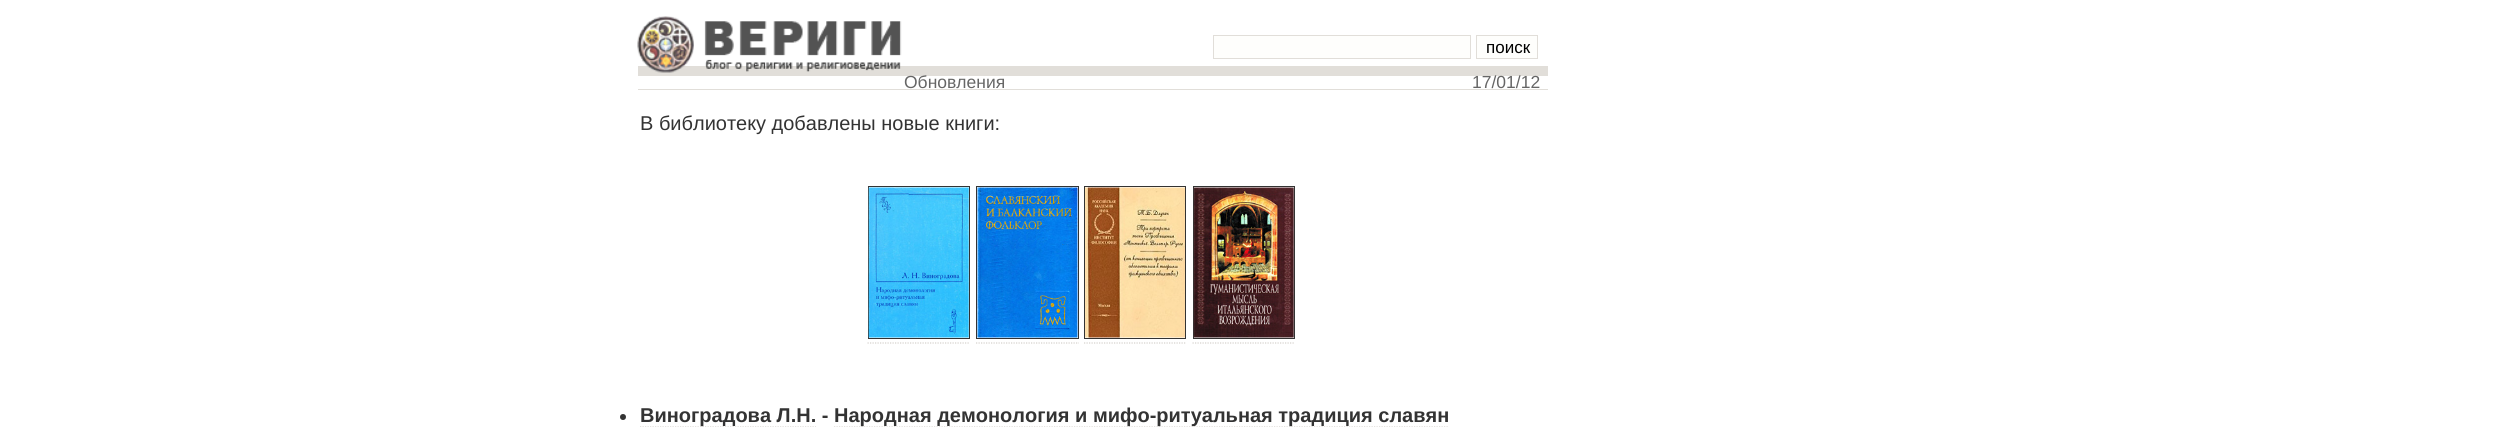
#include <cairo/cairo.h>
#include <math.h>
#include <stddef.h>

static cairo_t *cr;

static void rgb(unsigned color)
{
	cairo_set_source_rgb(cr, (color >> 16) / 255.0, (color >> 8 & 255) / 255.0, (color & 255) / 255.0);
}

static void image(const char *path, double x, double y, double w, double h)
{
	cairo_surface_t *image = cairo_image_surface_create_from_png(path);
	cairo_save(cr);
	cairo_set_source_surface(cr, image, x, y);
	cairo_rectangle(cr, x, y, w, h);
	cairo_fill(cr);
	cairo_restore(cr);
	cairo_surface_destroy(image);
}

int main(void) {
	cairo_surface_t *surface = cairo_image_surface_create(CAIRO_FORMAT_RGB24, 2512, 427);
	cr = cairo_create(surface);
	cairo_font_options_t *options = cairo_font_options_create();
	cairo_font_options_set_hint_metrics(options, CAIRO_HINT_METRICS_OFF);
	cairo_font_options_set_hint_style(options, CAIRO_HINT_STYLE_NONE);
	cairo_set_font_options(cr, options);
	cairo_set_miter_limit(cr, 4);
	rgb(0xffffff);
	cairo_paint(cr);
	rgb(0xe1ded9);
	cairo_rectangle(cr, 638, 66, 910, 10);
	cairo_fill(cr);
	image("img/1.png", 637, 16, 265, 57);
	rgb(0xfefefc);
	cairo_rectangle(cr, 1213.5, 35.5, 257, 23);
	cairo_fill_preserve(cr);
	rgb(0xe1ded9);
	cairo_set_line_width(cr, 1);
	cairo_stroke(cr);
	rgb(0xfefefc);
	cairo_rectangle(cr, 1476.5, 35.5, 61, 23);
	cairo_fill_preserve(cr);
	rgb(0xe1ded9);
	cairo_stroke(cr);
	cairo_rectangle(cr, 638, 89, 910, 1);
	cairo_fill(cr);
	cairo_rectangle(cr, 868.5, 186.5, 101, 152);
	rgb(0x333333);
	cairo_stroke(cr);
	cairo_rectangle(cr, 976.5, 186.5, 102, 152);
	cairo_stroke(cr);
	cairo_rectangle(cr, 1084.5, 186.5, 101, 152);
	cairo_stroke(cr);
	cairo_rectangle(cr, 1193.5, 186.5, 101, 152);
	cairo_stroke(cr);
	image("img/2.png", 868, 187, 101, 151);
	image("img/3.png", 977, 187, 101, 151);
	image("img/4.png", 1085, 187, 100, 151);
	image("img/5.png", 1193, 187, 101, 151);
	cairo_new_path(cr);
	cairo_move_to(cr, 867.5, 343);
	cairo_line_to(cr, 970, 343);
	rgb(0xd4d1cc);
	cairo_set_line_width(cr, 1.2);
	cairo_set_dash(cr, (double[]){1.25, 1.25}, 2, 0);
	cairo_stroke(cr);
	cairo_new_path(cr);
	cairo_move_to(cr, 976, 343);
	cairo_line_to(cr, 1079, 343);
	cairo_stroke(cr);
	cairo_new_path(cr);
	cairo_move_to(cr, 1084, 343);
	cairo_line_to(cr, 1186, 343);
	cairo_stroke(cr);
	cairo_new_path(cr);
	cairo_move_to(cr, 1192.5, 343);
	cairo_line_to(cr, 1295, 343);
	cairo_stroke(cr);
	rgb(0x333333);
	cairo_arc(cr, 623, 417, 3, 0, 2 * M_PI);
	cairo_fill(cr);
	cairo_new_path(cr);
	cairo_move_to(cr, 640, 427);
	cairo_line_to(cr, 816, 427);
	rgb(0xd4d1cc);
	cairo_stroke(cr);
	cairo_new_path(cr);
	cairo_move_to(cr, 834, 427);
	cairo_line_to(cr, 1449, 427);
	cairo_stroke(cr);
	cairo_select_font_face(cr, "Liberation Sans", CAIRO_FONT_SLANT_NORMAL, CAIRO_FONT_WEIGHT_NORMAL);
	cairo_set_font_size(cr, 17);
	rgb(0x000000);
	cairo_move_to(cr, 1486, 53);
	cairo_show_text(cr, "поиск");
	cairo_set_font_size(cr, 17.5);
	rgb(0x666666);
	cairo_move_to(cr, 904, 88);
	cairo_show_text(cr, "Обновления");
	cairo_move_to(cr, 1472, 88);
	cairo_show_text(cr, "17/01/12");
	cairo_set_font_size(cr, 20);
	rgb(0x333333);
	cairo_move_to(cr, 640, 130);
	cairo_show_text(cr, "В библиотеку добавлены новые книги:");
	cairo_select_font_face(cr, "Liberation Sans", CAIRO_FONT_SLANT_NORMAL, CAIRO_FONT_WEIGHT_BOLD);
	cairo_move_to(cr, 640, 422);
	cairo_show_text(cr, "Виноградова Л.Н. -");
	cairo_move_to(cr, 834, 422);
	cairo_show_text(cr, "Народная демонология и мифо-ритуальная традиция славян");
	cairo_surface_write_to_png(surface, "page.png");
	cairo_font_options_destroy(options);
	cairo_destroy(cr);
	cairo_surface_destroy(surface);
	return 0;
}
